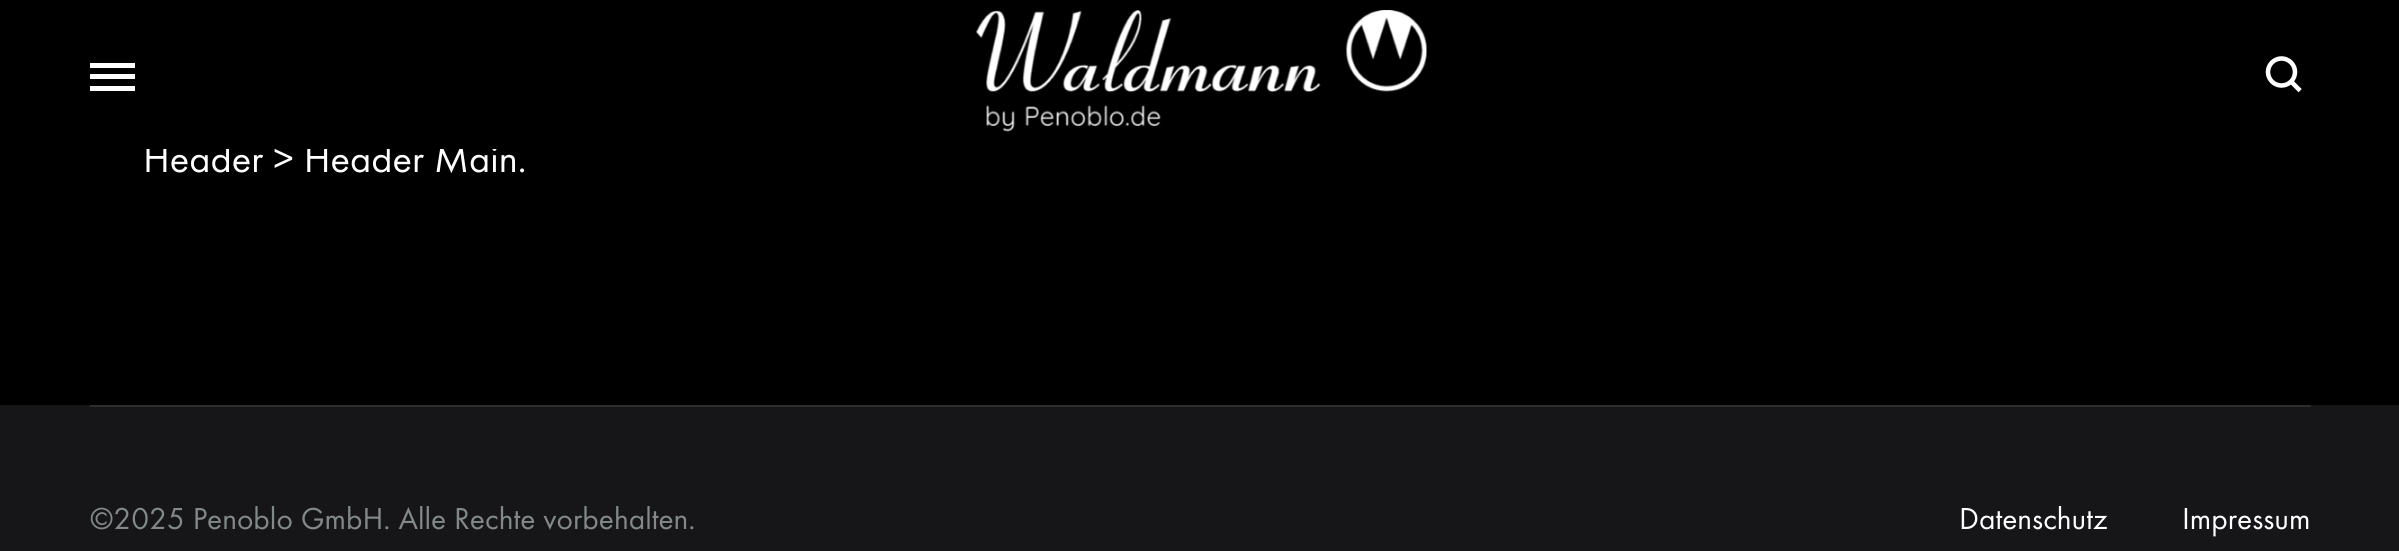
#include <cairo/cairo.h>
#include <math.h>
#include <stddef.h>

typedef struct { double x, y, w, h; unsigned color; } box_t;
static cairo_t *cr;

static void rgb(unsigned color)
{
	cairo_set_source_rgb(cr, (color >> 16) / 255.0, (color >> 8 & 255) / 255.0, (color & 255) / 255.0);
}

static void image(const char *path, double x, double y, double w, double h)
{
	cairo_surface_t *image = cairo_image_surface_create_from_png(path);
	cairo_save(cr);
	cairo_set_source_surface(cr, image, x, y);
	cairo_rectangle(cr, x, y, w, h);
	cairo_fill(cr);
	cairo_restore(cr);
	cairo_surface_destroy(image);
}

int main(void) {
	cairo_surface_t *surface = cairo_image_surface_create(CAIRO_FORMAT_RGB24, 2399, 551);
	cr = cairo_create(surface);
	cairo_font_options_t *options = cairo_font_options_create();
	cairo_font_options_set_hint_metrics(options, CAIRO_HINT_METRICS_OFF);
	cairo_font_options_set_hint_style(options, CAIRO_HINT_STYLE_NONE);
	cairo_set_font_options(cr, options);
	cairo_set_miter_limit(cr, 4);
	rgb(0x000000);
	cairo_paint(cr);
	{
		static const box_t items[] = {
			{90, 74, 45, 5, 0xffffff},
			{90, 63, 45, 5, 0xffffff},
			{90, 86, 45, 5, 0xffffff},
		};
		for (size_t i = 0; i < sizeof items / sizeof *items; i++) {
			rgb(items[i].color);
			cairo_rectangle(cr, items[i].x, items[i].y, items[i].w, items[i].h);
			cairo_fill(cr);
		}
	}
	image("img/1.png", 976, 10, 451, 122);
	image("img/2.png", 2265, 56, 37, 37);
	rgb(0x161619);
	cairo_rectangle(cr, 0, 405, 2399, 146);
	cairo_fill(cr);
	rgb(0x2d2d30);
	cairo_rectangle(cr, 90, 405, 2221, 2);
	cairo_fill(cr);
	cairo_select_font_face(cr, "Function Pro", CAIRO_FONT_SLANT_NORMAL, CAIRO_FONT_WEIGHT_NORMAL);
	cairo_set_font_size(cr, 40.5);
	rgb(0xffffff);
	cairo_move_to(cr, 143, 172);
	cairo_show_text(cr, "Header > Header Main.");
	rgb(0x000000);
	cairo_rectangle(cr, 146, 142, 351, 7);
	cairo_fill(cr);
	cairo_set_font_size(cr, 31.5);
	rgb(0x838889);
	cairo_move_to(cr, 90, 529);
	cairo_show_text(cr, "©2025 Penoblo GmbH. Alle Rechte vorbehalten.");
	rgb(0xffffff);
	cairo_move_to(cr, 1959, 529);
	cairo_show_text(cr, "Datenschutz");
	cairo_move_to(cr, 2182, 529);
	cairo_show_text(cr, "Impressum");
	cairo_surface_write_to_png(surface, "page.png");
	cairo_font_options_destroy(options);
	cairo_destroy(cr);
	cairo_surface_destroy(surface);
	return 0;
}
